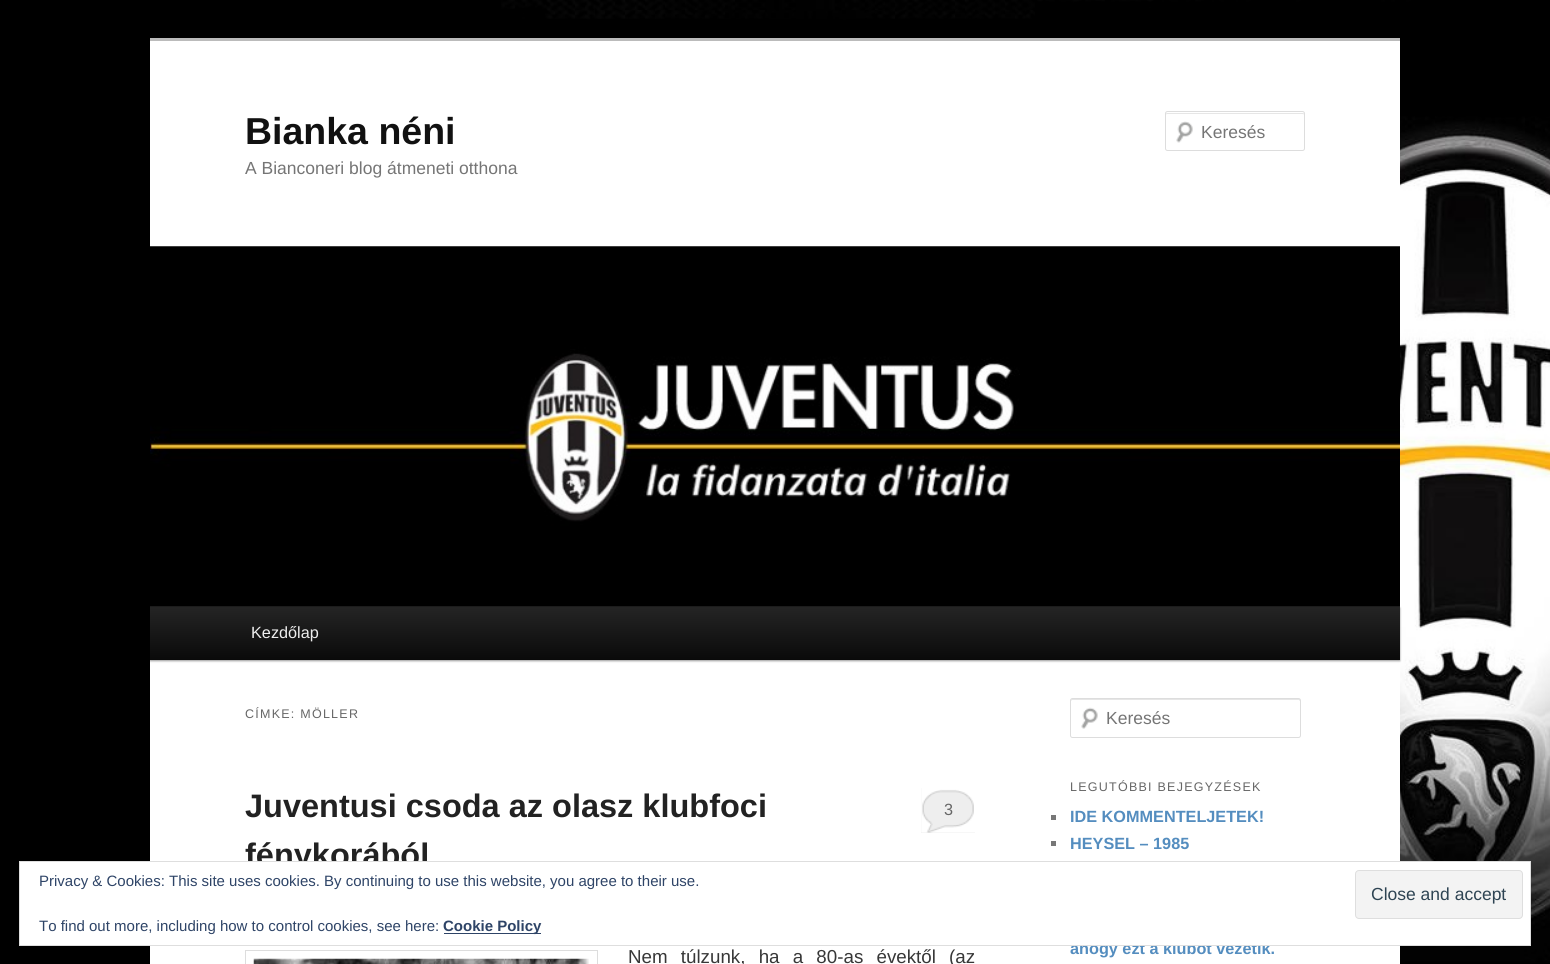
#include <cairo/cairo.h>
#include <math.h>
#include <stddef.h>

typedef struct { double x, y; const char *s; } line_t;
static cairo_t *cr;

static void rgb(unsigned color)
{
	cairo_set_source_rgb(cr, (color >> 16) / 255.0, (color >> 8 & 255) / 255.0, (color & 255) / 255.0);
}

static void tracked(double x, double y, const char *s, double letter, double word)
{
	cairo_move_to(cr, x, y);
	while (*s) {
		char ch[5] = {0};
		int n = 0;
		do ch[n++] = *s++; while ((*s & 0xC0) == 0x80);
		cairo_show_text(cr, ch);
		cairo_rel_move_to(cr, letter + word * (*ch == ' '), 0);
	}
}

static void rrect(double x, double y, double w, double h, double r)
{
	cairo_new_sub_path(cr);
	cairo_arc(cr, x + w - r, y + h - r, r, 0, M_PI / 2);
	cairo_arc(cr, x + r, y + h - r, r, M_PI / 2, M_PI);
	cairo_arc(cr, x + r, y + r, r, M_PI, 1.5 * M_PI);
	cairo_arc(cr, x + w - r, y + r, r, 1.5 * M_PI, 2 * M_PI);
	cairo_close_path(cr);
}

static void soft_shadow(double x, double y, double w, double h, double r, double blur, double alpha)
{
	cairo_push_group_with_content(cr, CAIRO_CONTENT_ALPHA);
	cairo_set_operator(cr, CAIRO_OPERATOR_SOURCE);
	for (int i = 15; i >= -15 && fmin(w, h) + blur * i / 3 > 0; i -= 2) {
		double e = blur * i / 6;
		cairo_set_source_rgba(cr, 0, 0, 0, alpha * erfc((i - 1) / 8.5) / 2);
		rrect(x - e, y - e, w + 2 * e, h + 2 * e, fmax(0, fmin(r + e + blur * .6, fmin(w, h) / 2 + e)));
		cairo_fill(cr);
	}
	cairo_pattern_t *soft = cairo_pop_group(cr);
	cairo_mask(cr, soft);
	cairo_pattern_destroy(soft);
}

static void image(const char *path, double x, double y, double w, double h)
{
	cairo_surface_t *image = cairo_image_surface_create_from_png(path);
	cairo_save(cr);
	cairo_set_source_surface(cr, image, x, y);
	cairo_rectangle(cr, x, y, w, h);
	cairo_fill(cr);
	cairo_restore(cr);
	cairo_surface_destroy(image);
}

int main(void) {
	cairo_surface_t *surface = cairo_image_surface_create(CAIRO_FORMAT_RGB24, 1550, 964);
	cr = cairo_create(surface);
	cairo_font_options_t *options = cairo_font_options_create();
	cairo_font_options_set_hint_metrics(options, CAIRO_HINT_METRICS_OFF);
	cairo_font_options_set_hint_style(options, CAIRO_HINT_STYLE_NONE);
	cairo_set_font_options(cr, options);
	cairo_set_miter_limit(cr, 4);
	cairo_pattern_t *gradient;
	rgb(0xffffff);
	cairo_paint(cr);
	image("img/1.png", 0, 0, 1550, 964);
	rgb(0xffffff);
	cairo_rectangle(cr, 150, 41, 1250, 923);
	cairo_fill(cr);
	rgb(0xbbbbbb);
	cairo_rectangle(cr, 150, 38, 1250, 3);
	cairo_fill(cr);
	image("img/2.png", 1176, 121, 17, 22);
	rgb(0xe6e6e6);
	cairo_new_path(cr);
	cairo_move_to(cr, 1168, 114);
	cairo_line_to(cr, 1302, 114);
	cairo_curve_to(cr, 1303, 114, 1304, 114, 1304, 115);
	cairo_curve_to(cr, 1304, 114, 1304, 113, 1303, 113);
	cairo_line_to(cr, 1167, 113);
	cairo_curve_to(cr, 1166, 113, 1166, 114, 1166, 115);
	cairo_curve_to(cr, 1166, 114, 1167, 114, 1168, 114);
	cairo_close_path(cr);
	cairo_fill(cr);
	rrect(1165.5, 111.5, 139, 39, 2);
	rgb(0xdddddd);
	cairo_set_line_width(cr, 1);
	cairo_stroke(cr);
	rgb(0x000000);
	soft_shadow(150, 608, 1250, 53, 0, 1, 0.4);
	gradient = cairo_pattern_create_linear(775, 606, 775, 660);
	cairo_pattern_add_color_stop_rgba(gradient, 0, 0.145, 0.145, 0.145, 1);
	cairo_pattern_add_color_stop_rgba(gradient, 1, 0.039, 0.039, 0.039, 1);
	cairo_set_source(cr, gradient);
	cairo_pattern_destroy(gradient);
	cairo_rectangle(cr, 150, 606, 1250, 54);
	cairo_fill(cr);
	image("img/3.png", 150, 246, 1250, 361);
	rgb(0xeeeeee);
	cairo_rectangle(cr, 921, 788, 54, 45);
	cairo_fill(cr);
	image("img/4.png", 921, 788, 54, 45);
	cairo_rectangle(cr, 245.5, 950.5, 352, 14);
	rgb(0xdddddd);
	cairo_stroke(cr);
	image("img/5.png", 253, 958, 336, 6);
	image("img/6.png", 1081, 707, 17, 22);
	rgb(0xe6e6e6);
	cairo_new_path(cr);
	cairo_move_to(cr, 1072, 700);
	cairo_line_to(cr, 1299, 700);
	cairo_line_to(cr, 1300, 701);
	cairo_line_to(cr, 1300, 699);
	cairo_line_to(cr, 1072, 699);
	cairo_curve_to(cr, 1071, 699, 1071, 700, 1071, 701);
	cairo_close_path(cr);
	cairo_fill(cr);
	rrect(1070.5, 698.5, 230, 39, 2);
	rgb(0xdddddd);
	cairo_stroke(cr);
	rgb(0x777777);
	cairo_rectangle(cr, 1051, 815, 5, 5);
	cairo_fill(cr);
	cairo_rectangle(cr, 1051, 841, 5, 5);
	cairo_fill(cr);
	cairo_select_font_face(cr, "Liberation Sans", CAIRO_FONT_SLANT_NORMAL, CAIRO_FONT_WEIGHT_BOLD);
	cairo_set_font_size(cr, 37.5);
	rgb(0x111111);
	cairo_move_to(cr, 245, 144);
	cairo_show_text(cr, "Bianka néni");
	cairo_select_font_face(cr, "Liberation Sans", CAIRO_FONT_SLANT_NORMAL, CAIRO_FONT_WEIGHT_NORMAL);
	cairo_set_font_size(cr, 17.5);
	rgb(0x757575);
	cairo_move_to(cr, 245, 174);
	cairo_show_text(cr, "A Bianconeri blog átmeneti otthona");
	cairo_move_to(cr, 1201, 138);
	cairo_show_text(cr, "Keresés");
	cairo_set_font_size(cr, 16.25);
	rgb(0xeeeeee);
	cairo_move_to(cr, 251, 638);
	cairo_show_text(cr, "Kezdőlap");
	cairo_set_font_size(cr, 12.5);
	rgb(0x666666);
	tracked(245, 718, "CÍMKE: MÖLLER", 1.25, 0);
	cairo_select_font_face(cr, "Liberation Sans", CAIRO_FONT_SLANT_NORMAL, CAIRO_FONT_WEIGHT_BOLD);
	cairo_set_font_size(cr, 32.5);
	rgb(0x222222);
	cairo_move_to(cr, 245, 817);
	cairo_show_text(cr, "Juventusi csoda az olasz klubfoci");
	cairo_move_to(cr, 245, 866);
	cairo_show_text(cr, "fénykorából");
	cairo_select_font_face(cr, "Liberation Sans", CAIRO_FONT_SLANT_NORMAL, CAIRO_FONT_WEIGHT_NORMAL);
	cairo_set_font_size(cr, 16.25);
	rgb(0x666666);
	cairo_move_to(cr, 944, 815);
	cairo_show_text(cr, "3");
	cairo_set_font_size(cr, 18.75);
	rgb(0x373737);
	tracked(628, 963, "Nem túlzunk, ha a 80-as évektől (az", 0, 8);
	cairo_set_font_size(cr, 17.5);
	rgb(0x757575);
	cairo_move_to(cr, 1106, 724);
	cairo_show_text(cr, "Keresés");
	cairo_set_font_size(cr, 12.5);
	rgb(0x666666);
	tracked(1070, 791, "LEGUTÓBBI BEJEGYZÉSEK", 1.25, 0);
	cairo_select_font_face(cr, "Liberation Sans", CAIRO_FONT_SLANT_NORMAL, CAIRO_FONT_WEIGHT_BOLD);
	cairo_set_font_size(cr, 16.25);
	rgb(0x548dbf);
	{
		static const line_t items[] = {
			{1070, 822, "IDE KOMMENTELJETEK!"},
			{1070, 849, "HEYSEL – 1985"},
			{1070, 954, "ahogy ezt a klubot vezetik."},
		};
		for (size_t i = 0; i < sizeof items / sizeof *items; i++) {
			cairo_move_to(cr, items[i].x, items[i].y);
			cairo_show_text(cr, items[i].s);
		}
	}
	rgb(0xffffff);
	cairo_rectangle(cr, 19.5, 861.5, 1511, 84);
	cairo_fill_preserve(cr);
	rgb(0xdedede);
	cairo_stroke(cr);
	cairo_select_font_face(cr, "Liberation Sans", CAIRO_FONT_SLANT_NORMAL, CAIRO_FONT_WEIGHT_NORMAL);
	cairo_set_font_size(cr, 15);
	rgb(0x2e4467);
	cairo_move_to(cr, 39, 886);
	cairo_show_text(cr, "Privacy & Cookies: This site uses cookies. By continuing to use this website, you agree to their use.");
	rgb(0xf3f3f3);
	rrect(1355.5, 870.5, 167, 48, 3.5);
	cairo_fill_preserve(cr);
	rgb(0xdedede);
	cairo_stroke(cr);
	cairo_set_font_size(cr, 17.5);
	rgb(0x2e4453);
	cairo_move_to(cr, 1371, 900);
	cairo_show_text(cr, "Close and accept");
	cairo_set_font_size(cr, 15);
	rgb(0x2e4467);
	cairo_move_to(cr, 39, 931);
	cairo_show_text(cr, "To find out more, including how to control cookies, see here:");
	cairo_rectangle(cr, 444, 933, 97, 1);
	cairo_fill(cr);
	cairo_select_font_face(cr, "Liberation Sans", CAIRO_FONT_SLANT_NORMAL, CAIRO_FONT_WEIGHT_BOLD);
	cairo_move_to(cr, 443, 931);
	cairo_show_text(cr, "Cookie Policy");
	cairo_surface_write_to_png(surface, "page.png");
	cairo_font_options_destroy(options);
	cairo_destroy(cr);
	cairo_surface_destroy(surface);
	return 0;
}
